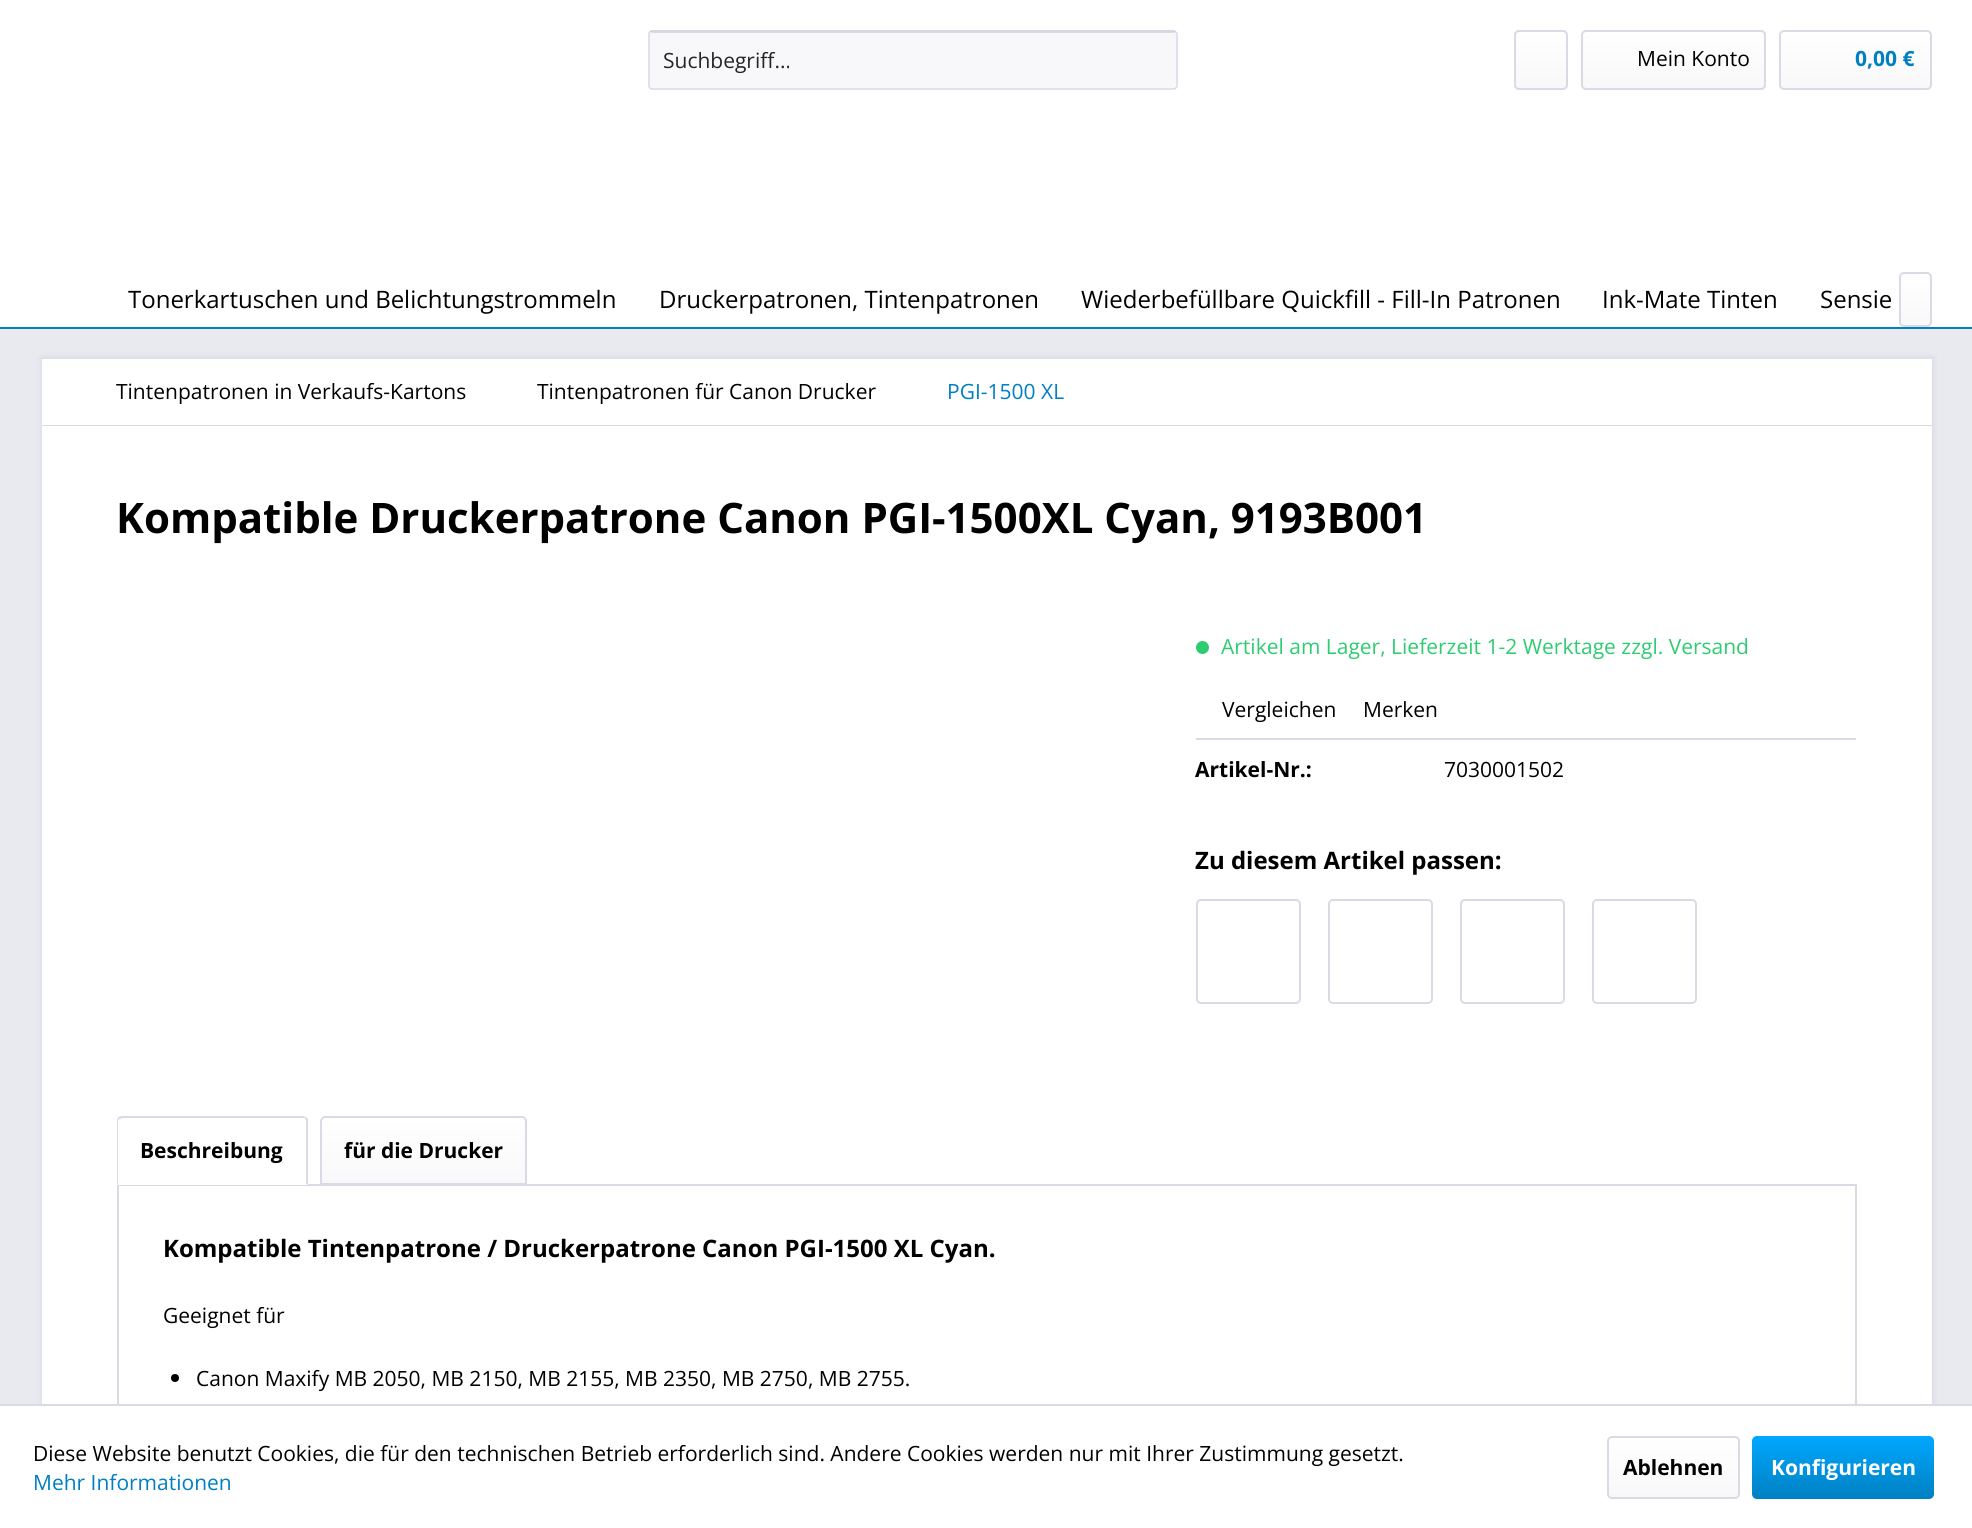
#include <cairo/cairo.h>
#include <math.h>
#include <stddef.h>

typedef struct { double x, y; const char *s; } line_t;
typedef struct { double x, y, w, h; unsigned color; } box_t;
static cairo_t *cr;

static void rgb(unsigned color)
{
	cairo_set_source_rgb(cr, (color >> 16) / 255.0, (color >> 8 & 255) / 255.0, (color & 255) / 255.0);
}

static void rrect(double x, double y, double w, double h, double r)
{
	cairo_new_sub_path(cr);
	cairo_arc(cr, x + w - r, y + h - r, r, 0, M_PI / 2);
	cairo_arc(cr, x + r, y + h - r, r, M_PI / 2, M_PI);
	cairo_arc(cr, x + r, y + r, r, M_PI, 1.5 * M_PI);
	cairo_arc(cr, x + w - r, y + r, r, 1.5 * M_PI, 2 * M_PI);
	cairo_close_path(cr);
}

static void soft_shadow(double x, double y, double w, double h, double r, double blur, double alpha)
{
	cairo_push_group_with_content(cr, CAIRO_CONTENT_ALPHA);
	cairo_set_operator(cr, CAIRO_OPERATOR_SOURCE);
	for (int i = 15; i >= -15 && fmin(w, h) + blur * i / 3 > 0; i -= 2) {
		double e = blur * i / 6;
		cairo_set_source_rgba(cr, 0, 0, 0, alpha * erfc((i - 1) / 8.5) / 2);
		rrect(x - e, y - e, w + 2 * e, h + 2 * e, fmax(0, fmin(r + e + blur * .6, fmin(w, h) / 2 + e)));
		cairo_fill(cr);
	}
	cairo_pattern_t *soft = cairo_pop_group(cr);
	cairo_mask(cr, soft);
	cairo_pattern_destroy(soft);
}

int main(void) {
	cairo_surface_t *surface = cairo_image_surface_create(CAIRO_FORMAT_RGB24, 1972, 1528);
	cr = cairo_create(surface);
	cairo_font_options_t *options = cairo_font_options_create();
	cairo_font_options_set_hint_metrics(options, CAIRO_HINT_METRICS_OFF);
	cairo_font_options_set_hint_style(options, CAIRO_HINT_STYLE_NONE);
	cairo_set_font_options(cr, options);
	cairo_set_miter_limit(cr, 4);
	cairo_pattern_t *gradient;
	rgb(0xe9e9f0);
	cairo_paint(cr);
	rgb(0xffffff);
	cairo_rectangle(cr, 0, 0, 1972, 327);
	cairo_fill(cr);
	rgb(0xf8f8fa);
	rrect(648, 30, 530, 60, 5);
	cairo_fill(cr);
	rgb(0xdadae5);
	cairo_new_path(cr);
	cairo_move_to(cr, 652, 33);
	cairo_line_to(cr, 1173, 33);
	cairo_curve_to(cr, 1175, 33, 1176, 34, 1176, 36);
	cairo_line_to(cr, 1175, 33);
	cairo_line_to(cr, 1173, 32);
	cairo_line_to(cr, 653, 32);
	cairo_curve_to(cr, 651, 32, 650, 34, 650, 36);
	cairo_curve_to(cr, 650, 34, 651, 33, 652, 33);
	cairo_close_path(cr);
	cairo_fill(cr);
	cairo_new_path(cr);
	cairo_move_to(cr, 650, 32);
	cairo_curve_to(cr, 650.5, 31, 651.5, 31, 652.5, 31);
	cairo_line_to(cr, 1173, 31);
	cairo_curve_to(cr, 1174, 31, 1175, 31, 1175.5, 32);
	rgb(0xcbcbdb);
	cairo_set_line_width(cr, 1.5);
	cairo_stroke(cr);
	cairo_new_path(cr);
	cairo_move_to(cr, 1175.5, 32);
	cairo_curve_to(cr, 1176.5, 32.5, 1177, 33.5, 1177, 34.5);
	cairo_line_to(cr, 1177, 85.5);
	cairo_curve_to(cr, 1177, 86.5, 1176.5, 87.5, 1175.5, 88);
	cairo_curve_to(cr, 1175, 89, 1174, 89, 1173, 89);
	cairo_line_to(cr, 652.5, 89);
	cairo_curve_to(cr, 651.5, 89, 650.5, 89, 650, 88);
	cairo_curve_to(cr, 649, 87.5, 649, 86.5, 649, 85.5);
	cairo_line_to(cr, 649, 34.5);
	cairo_curve_to(cr, 649, 33.5, 649, 32.5, 650, 32);
	rgb(0xdadae5);
	cairo_stroke(cr);
	gradient = cairo_pattern_create_linear(1541, 31, 1541, 89);
	cairo_pattern_add_color_stop_rgba(gradient, 0, 1, 1, 1, 1);
	cairo_pattern_add_color_stop_rgba(gradient, 1, 0.973, 0.973, 0.98, 1);
	cairo_set_source(cr, gradient);
	cairo_pattern_destroy(gradient);
	rrect(1515, 32, 51, 57, 3);
	cairo_fill(cr);
	rrect(1515, 31, 52, 58, 4);
	rgb(0xdadae5);
	cairo_set_line_width(cr, 2);
	cairo_stroke(cr);
	gradient = cairo_pattern_create_linear(1673, 31, 1673, 89);
	cairo_pattern_add_color_stop_rgba(gradient, 0, 1, 1, 1, 1);
	cairo_pattern_add_color_stop_rgba(gradient, 1, 0.973, 0.973, 0.98, 1);
	cairo_set_source(cr, gradient);
	cairo_pattern_destroy(gradient);
	rrect(1583, 32, 181, 57, 3);
	cairo_fill(cr);
	rrect(1582, 31, 183, 58, 4);
	rgb(0xdadae5);
	cairo_stroke(cr);
	gradient = cairo_pattern_create_linear(1856, 31, 1856, 89);
	cairo_pattern_add_color_stop_rgba(gradient, 0, 1, 1, 1, 1);
	cairo_pattern_add_color_stop_rgba(gradient, 1, 0.973, 0.973, 0.98, 1);
	cairo_set_source(cr, gradient);
	cairo_pattern_destroy(gradient);
	rrect(1781, 32, 150, 57, 3);
	cairo_fill(cr);
	rrect(1780, 31, 151, 58, 4);
	rgb(0xdadae5);
	cairo_stroke(cr);
	rgb(0x0080c2);
	cairo_rectangle(cr, 0, 327, 1972, 2);
	cairo_fill(cr);
	gradient = cairo_pattern_create_linear(1916, 273, 1916, 326);
	cairo_pattern_add_color_stop_rgba(gradient, 0, 1, 1, 1, 1);
	cairo_pattern_add_color_stop_rgba(gradient, 1, 0.973, 0.973, 0.98, 1);
	cairo_set_source(cr, gradient);
	cairo_pattern_destroy(gradient);
	rrect(1901, 273, 30, 53, 3);
	cairo_fill(cr);
	rrect(1900, 273, 31, 53, 4);
	rgb(0xdadae5);
	cairo_stroke(cr);
	rgb(0xdadae5);
	soft_shadow(41, 357, 1893, 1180, 0, 3, 1);
	{
		static const box_t items[] = {
			{42, 359, 1890, 66, 0xffffff},
			{42, 425, 1890, 1, 0xdadae5},
			{42, 426, 1890, 978, 0xffffff},
		};
		for (size_t i = 0; i < sizeof items / sizeof *items; i++) {
			rgb(items[i].color);
			cairo_rectangle(cr, items[i].x, items[i].y, items[i].w, items[i].h);
			cairo_fill(cr);
		}
	}
	rgb(0x2ecc71);
	cairo_arc(cr, 1202.5, 647.5, 6.5, 0, 2 * M_PI);
	cairo_fill(cr);
	rgb(0xdadae5);
	cairo_rectangle(cr, 1196, 738, 660, 2);
	cairo_fill(cr);
	rrect(1197, 900, 103, 103, 4);
	cairo_stroke(cr);
	rrect(1329, 900, 103, 103, 4);
	cairo_stroke(cr);
	rrect(1461, 900, 103, 103, 4);
	cairo_stroke(cr);
	rrect(1593, 900, 103, 103, 4);
	cairo_stroke(cr);
	cairo_rectangle(cr, 118, 1185, 1738, 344);
	cairo_stroke(cr);
	rgb(0xffffff);
	cairo_new_path(cr);
	cairo_move_to(cr, 122, 1116);
	cairo_line_to(cr, 303, 1116);
	cairo_curve_to(cr, 306, 1116, 308, 1118, 308, 1121);
	cairo_line_to(cr, 308, 1185);
	cairo_line_to(cr, 117, 1185);
	cairo_line_to(cr, 117, 1121);
	cairo_curve_to(cr, 117, 1118, 119, 1116, 122, 1116);
	cairo_close_path(cr);
	cairo_fill(cr);
	rgb(0xdadae5);
	cairo_new_path(cr);
	cairo_move_to(cr, 122, 1116);
	cairo_curve_to(cr, 120, 1116, 119, 1117, 118, 1117);
	cairo_line_to(cr, 120, 1119);
	cairo_line_to(cr, 122, 1118);
	cairo_line_to(cr, 303, 1118);
	cairo_line_to(cr, 305, 1118);
	cairo_line_to(cr, 306, 1117);
	cairo_line_to(cr, 303, 1116);
	cairo_close_path(cr);
	cairo_fill(cr);
	cairo_new_path(cr);
	cairo_move_to(cr, 308, 1119);
	cairo_line_to(cr, 308, 1185);
	cairo_line_to(cr, 306, 1184);
	cairo_line_to(cr, 306, 1120);
	cairo_line_to(cr, 305, 1118);
	cairo_line_to(cr, 306, 1117);
	cairo_close_path(cr);
	cairo_fill(cr);
	rgb(0xffffff);
	cairo_new_path(cr);
	cairo_move_to(cr, 308, 1185);
	cairo_line_to(cr, 306, 1184);
	cairo_line_to(cr, 118, 1184);
	cairo_line_to(cr, 117, 1185);
	cairo_close_path(cr);
	cairo_fill(cr);
	rgb(0xdadae5);
	cairo_new_path(cr);
	cairo_move_to(cr, 117, 1185);
	cairo_line_to(cr, 118, 1184);
	cairo_line_to(cr, 118, 1120);
	cairo_line_to(cr, 120, 1119);
	cairo_line_to(cr, 118, 1117);
	cairo_line_to(cr, 117, 1120);
	cairo_close_path(cr);
	cairo_fill(cr);
	gradient = cairo_pattern_create_linear(423, 1118, 423, 1184);
	cairo_pattern_add_color_stop_rgba(gradient, 0, 1, 1, 1, 1);
	cairo_pattern_add_color_stop_rgba(gradient, 1, 0.973, 0.973, 0.98, 1);
	cairo_set_source(cr, gradient);
	cairo_pattern_destroy(gradient);
	cairo_new_path(cr);
	cairo_move_to(cr, 324, 1118);
	cairo_line_to(cr, 522, 1118);
	cairo_curve_to(cr, 523.5, 1118, 525, 1119.5, 525, 1121);
	cairo_line_to(cr, 525, 1184);
	cairo_line_to(cr, 321, 1184);
	cairo_line_to(cr, 321, 1121);
	cairo_curve_to(cr, 321, 1119.5, 322.5, 1118, 324, 1118);
	cairo_close_path(cr);
	cairo_fill(cr);
	cairo_new_path(cr);
	cairo_move_to(cr, 325, 1117);
	cairo_line_to(cr, 522, 1117);
	cairo_curve_to(cr, 524, 1117, 526, 1119, 526, 1121);
	cairo_line_to(cr, 526, 1184);
	cairo_line_to(cr, 321, 1184);
	cairo_line_to(cr, 321, 1121);
	cairo_curve_to(cr, 321, 1119, 323, 1117, 325, 1117);
	cairo_close_path(cr);
	rgb(0xdadae5);
	cairo_stroke(cr);
	rgb(0x000000);
	cairo_arc(cr, 175, 1378, 4, 0, 2 * M_PI);
	cairo_fill(cr);
	rgb(0xffffff);
	cairo_rectangle(cr, 0, 1406, 1972, 122);
	cairo_fill(cr);
	rgb(0xdadae5);
	cairo_rectangle(cr, 0, 1404, 1972, 2);
	cairo_fill(cr);
	gradient = cairo_pattern_create_linear(1673, 1437, 1673, 1497);
	cairo_pattern_add_color_stop_rgba(gradient, 0, 1, 1, 1, 1);
	cairo_pattern_add_color_stop_rgba(gradient, 1, 0.973, 0.973, 0.98, 1);
	cairo_set_source(cr, gradient);
	cairo_pattern_destroy(gradient);
	rrect(1608, 1437, 131, 60, 3);
	cairo_fill(cr);
	rrect(1608, 1437, 131, 61, 4);
	rgb(0xdadae5);
	cairo_stroke(cr);
	gradient = cairo_pattern_create_linear(1843, 1436, 1843, 1499);
	cairo_pattern_add_color_stop_rgba(gradient, 0, 0, 0.659, 1, 1);
	cairo_pattern_add_color_stop_rgba(gradient, 1, 0, 0.502, 0.761, 1);
	cairo_set_source(cr, gradient);
	cairo_pattern_destroy(gradient);
	rrect(1752, 1436, 182, 63, 5);
	cairo_fill(cr);
	cairo_select_font_face(cr, "Open Sans", CAIRO_FONT_SLANT_NORMAL, CAIRO_FONT_WEIGHT_NORMAL);
	cairo_set_font_size(cr, 21);
	rgb(0x262626);
	cairo_move_to(cr, 663, 68);
	cairo_show_text(cr, "Suchbegriff...");
	rgb(0x000000);
	cairo_move_to(cr, 1637, 66);
	cairo_show_text(cr, "Mein Konto");
	cairo_select_font_face(cr, "Open Sans", CAIRO_FONT_SLANT_NORMAL, CAIRO_FONT_WEIGHT_BOLD);
	rgb(0x0080c2);
	cairo_move_to(cr, 1855, 66);
	cairo_show_text(cr, "0,00 €");
	cairo_select_font_face(cr, "Open Sans", CAIRO_FONT_SLANT_NORMAL, CAIRO_FONT_WEIGHT_NORMAL);
	cairo_set_font_size(cr, 24);
	rgb(0x000000);
	{
		static const line_t items[] = {
			{128, 308, "Tonerkartuschen und Belichtungstrommeln"},
			{659, 308, "Druckerpatronen, Tintenpatronen"},
			{1081, 308, "Wiederbefüllbare Quickfill - Fill-In Patronen"},
			{1602, 308, "Ink-Mate Tinten"},
			{1820, 308, "Sensie"},
		};
		for (size_t i = 0; i < sizeof items / sizeof *items; i++) {
			cairo_move_to(cr, items[i].x, items[i].y);
			cairo_show_text(cr, items[i].s);
		}
	}
	cairo_set_font_size(cr, 21);
	cairo_move_to(cr, 116, 399);
	cairo_show_text(cr, "Tintenpatronen in Verkaufs-Kartons");
	cairo_move_to(cr, 537, 399);
	cairo_show_text(cr, "Tintenpatronen für Canon Drucker");
	rgb(0x0080c2);
	cairo_move_to(cr, 947, 399);
	cairo_show_text(cr, "PGI-1500 XL");
	cairo_select_font_face(cr, "Open Sans", CAIRO_FONT_SLANT_NORMAL, CAIRO_FONT_WEIGHT_BOLD);
	cairo_set_font_size(cr, 42);
	rgb(0x000000);
	cairo_move_to(cr, 116, 533);
	cairo_show_text(cr, "Kompatible Druckerpatrone Canon PGI-1500XL Cyan, 9193B001");
	cairo_select_font_face(cr, "Open Sans", CAIRO_FONT_SLANT_NORMAL, CAIRO_FONT_WEIGHT_NORMAL);
	cairo_set_font_size(cr, 21);
	rgb(0x2ecc71);
	cairo_move_to(cr, 1221, 654);
	cairo_show_text(cr, "Artikel am Lager, Lieferzeit 1-2 Werktage zzgl. Versand");
	rgb(0x000000);
	cairo_move_to(cr, 1222, 717);
	cairo_show_text(cr, "Vergleichen");
	cairo_move_to(cr, 1363, 717);
	cairo_show_text(cr, "Merken");
	cairo_select_font_face(cr, "Open Sans", CAIRO_FONT_SLANT_NORMAL, CAIRO_FONT_WEIGHT_BOLD);
	cairo_move_to(cr, 1195, 777);
	cairo_show_text(cr, "Artikel-Nr.:");
	cairo_select_font_face(cr, "Open Sans", CAIRO_FONT_SLANT_NORMAL, CAIRO_FONT_WEIGHT_NORMAL);
	cairo_move_to(cr, 1444, 777);
	cairo_show_text(cr, "7030001502");
	cairo_select_font_face(cr, "Open Sans", CAIRO_FONT_SLANT_NORMAL, CAIRO_FONT_WEIGHT_BOLD);
	cairo_set_font_size(cr, 24);
	cairo_move_to(cr, 1195, 869);
	cairo_show_text(cr, "Zu diesem Artikel passen:");
	cairo_set_font_size(cr, 21);
	cairo_move_to(cr, 140, 1158);
	cairo_show_text(cr, "Beschreibung");
	cairo_move_to(cr, 344, 1158);
	cairo_show_text(cr, "für die Drucker");
	cairo_set_font_size(cr, 24);
	cairo_move_to(cr, 163, 1257);
	cairo_show_text(cr, "Kompatible Tintenpatrone / Druckerpatrone Canon PGI-1500 XL Cyan.");
	cairo_select_font_face(cr, "Open Sans", CAIRO_FONT_SLANT_NORMAL, CAIRO_FONT_WEIGHT_NORMAL);
	cairo_set_font_size(cr, 21);
	{
		static const line_t items[] = {
			{163, 1323, "Geeignet für"},
			{196, 1386, "Canon Maxify MB 2050, MB 2150, MB 2155, MB 2350, MB 2750, MB 2755."},
			{33, 1461, "Diese Website benutzt Cookies, die für den technischen Betrieb erforderlich sind. Andere Cookies werden nur mit Ihrer Zustimmung gesetzt."},
		};
		for (size_t i = 0; i < sizeof items / sizeof *items; i++) {
			cairo_move_to(cr, items[i].x, items[i].y);
			cairo_show_text(cr, items[i].s);
		}
	}
	rgb(0x0080c2);
	cairo_move_to(cr, 33, 1490);
	cairo_show_text(cr, "Mehr Informationen");
	cairo_select_font_face(cr, "Open Sans", CAIRO_FONT_SLANT_NORMAL, CAIRO_FONT_WEIGHT_BOLD);
	rgb(0x000000);
	cairo_move_to(cr, 1623, 1475);
	cairo_show_text(cr, "Ablehnen");
	rgb(0xffffff);
	cairo_move_to(cr, 1771, 1475);
	cairo_show_text(cr, "Konfigurieren");
	cairo_surface_write_to_png(surface, "page.png");
	cairo_font_options_destroy(options);
	cairo_destroy(cr);
	cairo_surface_destroy(surface);
	return 0;
}
